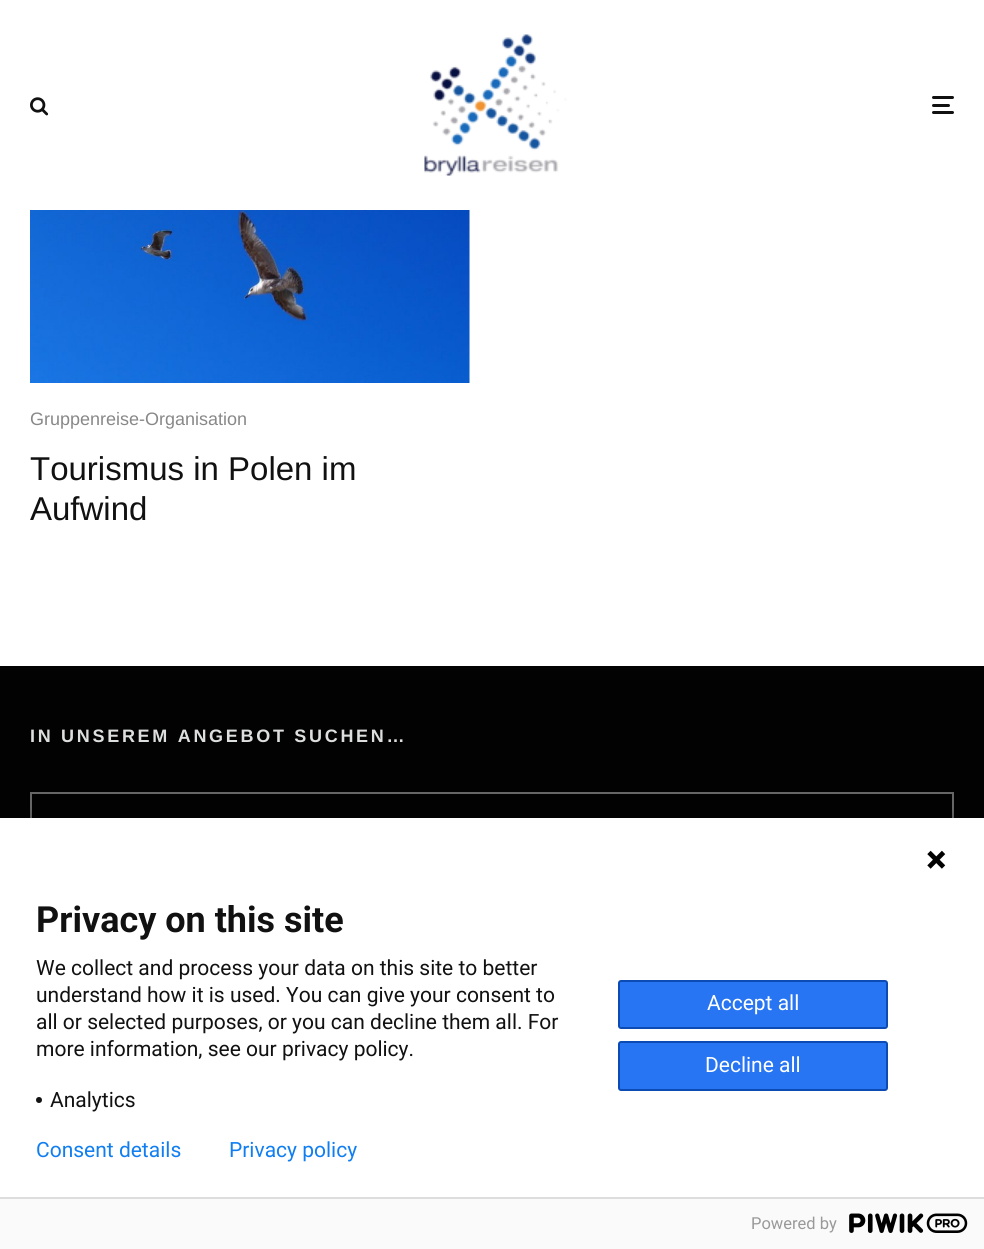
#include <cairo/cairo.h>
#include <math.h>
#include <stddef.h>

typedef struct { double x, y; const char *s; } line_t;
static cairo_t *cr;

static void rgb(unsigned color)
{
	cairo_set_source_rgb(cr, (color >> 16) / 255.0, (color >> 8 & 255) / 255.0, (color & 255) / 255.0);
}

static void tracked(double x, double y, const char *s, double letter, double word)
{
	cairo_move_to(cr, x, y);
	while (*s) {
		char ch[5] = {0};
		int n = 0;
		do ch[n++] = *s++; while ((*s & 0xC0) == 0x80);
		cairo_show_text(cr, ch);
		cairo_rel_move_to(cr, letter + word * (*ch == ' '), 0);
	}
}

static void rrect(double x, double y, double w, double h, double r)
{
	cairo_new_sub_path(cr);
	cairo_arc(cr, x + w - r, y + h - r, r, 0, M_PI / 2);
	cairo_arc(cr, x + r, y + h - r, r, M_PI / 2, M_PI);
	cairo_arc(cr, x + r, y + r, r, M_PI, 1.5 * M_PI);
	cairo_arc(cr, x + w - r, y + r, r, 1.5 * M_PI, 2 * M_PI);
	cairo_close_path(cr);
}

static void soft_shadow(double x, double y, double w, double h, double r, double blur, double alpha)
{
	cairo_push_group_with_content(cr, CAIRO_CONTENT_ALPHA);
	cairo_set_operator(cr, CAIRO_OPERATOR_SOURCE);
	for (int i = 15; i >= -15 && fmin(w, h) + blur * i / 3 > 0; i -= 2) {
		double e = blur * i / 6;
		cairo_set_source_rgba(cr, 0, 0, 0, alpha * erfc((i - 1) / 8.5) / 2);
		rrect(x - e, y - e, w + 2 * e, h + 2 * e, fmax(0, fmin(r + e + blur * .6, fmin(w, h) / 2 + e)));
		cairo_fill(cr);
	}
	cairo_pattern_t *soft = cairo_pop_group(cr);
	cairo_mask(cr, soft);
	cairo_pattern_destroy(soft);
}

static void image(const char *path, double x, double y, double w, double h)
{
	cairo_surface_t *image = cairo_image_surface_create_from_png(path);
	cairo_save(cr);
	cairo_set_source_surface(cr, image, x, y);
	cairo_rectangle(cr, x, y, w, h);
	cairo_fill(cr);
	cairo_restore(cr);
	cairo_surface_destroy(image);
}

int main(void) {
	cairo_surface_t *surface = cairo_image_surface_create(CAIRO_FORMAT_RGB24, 984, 1249);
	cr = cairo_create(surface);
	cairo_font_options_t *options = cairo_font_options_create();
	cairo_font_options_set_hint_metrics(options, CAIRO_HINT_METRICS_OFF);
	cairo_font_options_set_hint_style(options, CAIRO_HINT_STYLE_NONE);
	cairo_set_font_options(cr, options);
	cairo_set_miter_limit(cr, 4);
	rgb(0xffffff);
	cairo_paint(cr);
	image("img/1.png", 30, 97, 19, 19);
	image("img/2.png", 424, 34, 143, 142);
	rgb(0x111111);
	rrect(932, 104, 18, 3, 1.5);
	cairo_fill(cr);
	rrect(932, 96, 22, 3, 1.5);
	cairo_fill(cr);
	rrect(932, 111, 22, 3, 1.5);
	cairo_fill(cr);
	rgb(0xeeeeee);
	cairo_rectangle(cr, 469, 210, 1, 173);
	cairo_fill(cr);
	image("img/3.png", 30, 210, 440, 173);
	rgb(0x020202);
	cairo_rectangle(cr, 0, 666, 984, 152);
	cairo_fill(cr);
	cairo_rectangle(cr, 31, 793, 922, 73);
	rgb(0x666666);
	cairo_stroke(cr);
	rgb(0x000000);
	soft_shadow(-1, 813, 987, 435, 0, 4, 0.14);
	rgb(0xffffff);
	cairo_rectangle(cr, 0, 818, 984, 379);
	cairo_fill(cr);
	image("img/4.png", 927, 850, 19, 19);
	rgb(0x131313);
	cairo_arc(cr, 39, 1100, 3, 0, 2 * M_PI);
	cairo_fill(cr);
	rgb(0x2775f2);
	rrect(619, 981, 268, 47, 2);
	cairo_fill_preserve(cr);
	rgb(0x0b4bb3);
	cairo_stroke(cr);
	rgb(0x2775f2);
	rrect(619, 1042, 268, 48, 2);
	cairo_fill_preserve(cr);
	rgb(0x0b4bb3);
	cairo_stroke(cr);
	rgb(0xfafafa);
	cairo_rectangle(cr, 0, 1199, 984, 50);
	cairo_fill(cr);
	rgb(0xdddddd);
	cairo_rectangle(cr, 0, 1197, 984, 2);
	cairo_fill(cr);
	image("img/5.png", 849, 1213, 119, 20);
	cairo_select_font_face(cr, "Liberation Sans", CAIRO_FONT_SLANT_NORMAL, CAIRO_FONT_WEIGHT_NORMAL);
	cairo_set_font_size(cr, 18);
	rgb(0x888888);
	cairo_move_to(cr, 30, 425);
	cairo_show_text(cr, "Gruppenreise-Organisation");
	cairo_set_font_size(cr, 33);
	rgb(0x111111);
	cairo_move_to(cr, 30, 480);
	cairo_show_text(cr, "Tourismus in Polen im");
	cairo_move_to(cr, 30, 520);
	cairo_show_text(cr, "Aufwind");
	cairo_select_font_face(cr, "Liberation Sans", CAIRO_FONT_SLANT_NORMAL, CAIRO_FONT_WEIGHT_BOLD);
	cairo_set_font_size(cr, 18);
	rgb(0xdddede);
	tracked(30, 742, "IN UNSEREM ANGEBOT SUCHEN…", 2.7, 0);
	cairo_select_font_face(cr, "Roboto", CAIRO_FONT_SLANT_NORMAL, CAIRO_FONT_WEIGHT_BOLD);
	cairo_set_font_size(cr, 36);
	rgb(0x111111);
	cairo_move_to(cr, 36, 932);
	cairo_show_text(cr, "Privacy on this site");
	cairo_select_font_face(cr, "Roboto", CAIRO_FONT_SLANT_NORMAL, CAIRO_FONT_WEIGHT_NORMAL);
	cairo_set_font_size(cr, 21);
	{
		static const line_t items[] = {
			{36, 975, "We collect and process your data on this site to better"},
			{36, 1002, "understand how it is used. You can give your consent to"},
			{36, 1029, "all or selected purposes, or you can decline them all. For"},
			{36, 1056, "more information, see our privacy policy."},
			{50, 1107, "Analytics"},
		};
		for (size_t i = 0; i < sizeof items / sizeof *items; i++) {
			cairo_move_to(cr, items[i].x, items[i].y);
			cairo_show_text(cr, items[i].s);
		}
	}
	rgb(0xffffff);
	cairo_move_to(cr, 707, 1010);
	cairo_show_text(cr, "Accept all");
	cairo_move_to(cr, 705, 1072);
	cairo_show_text(cr, "Decline all");
	rgb(0x107ef1);
	cairo_move_to(cr, 36, 1157);
	cairo_show_text(cr, "Consent details");
	cairo_move_to(cr, 229, 1157);
	cairo_show_text(cr, "Privacy policy");
	cairo_set_font_size(cr, 16.5);
	rgb(0x999999);
	cairo_move_to(cr, 751, 1229);
	cairo_show_text(cr, "Powered by");
	cairo_surface_write_to_png(surface, "page.png");
	cairo_font_options_destroy(options);
	cairo_destroy(cr);
	cairo_surface_destroy(surface);
	return 0;
}
